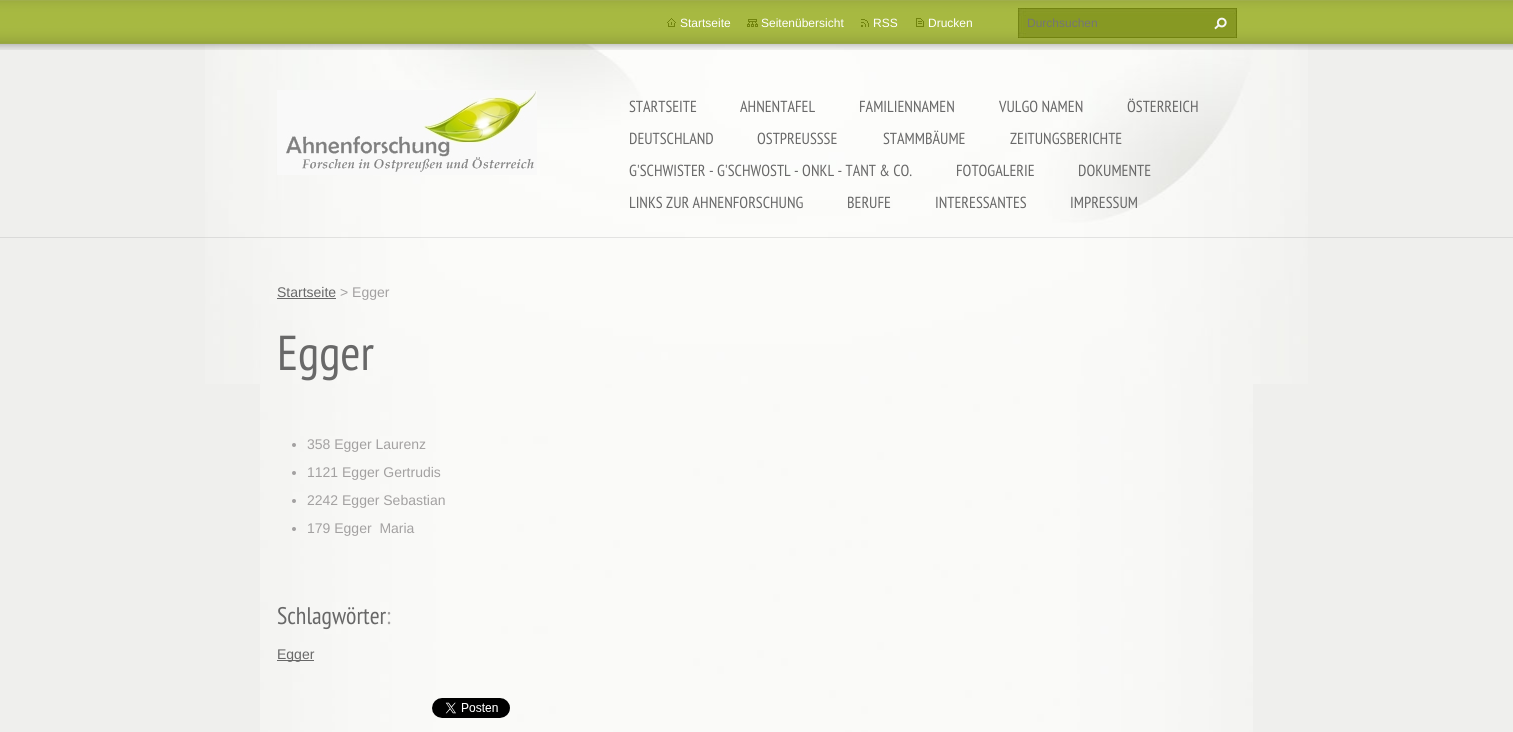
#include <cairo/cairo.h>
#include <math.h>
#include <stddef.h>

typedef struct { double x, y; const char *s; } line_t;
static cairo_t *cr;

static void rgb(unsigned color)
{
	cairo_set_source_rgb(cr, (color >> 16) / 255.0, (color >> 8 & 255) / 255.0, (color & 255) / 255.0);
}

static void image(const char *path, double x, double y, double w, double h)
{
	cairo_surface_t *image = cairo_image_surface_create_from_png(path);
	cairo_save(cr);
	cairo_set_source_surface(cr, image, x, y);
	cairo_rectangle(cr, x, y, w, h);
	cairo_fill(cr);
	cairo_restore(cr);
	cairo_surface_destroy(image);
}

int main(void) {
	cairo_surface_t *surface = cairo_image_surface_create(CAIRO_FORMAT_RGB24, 1513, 732);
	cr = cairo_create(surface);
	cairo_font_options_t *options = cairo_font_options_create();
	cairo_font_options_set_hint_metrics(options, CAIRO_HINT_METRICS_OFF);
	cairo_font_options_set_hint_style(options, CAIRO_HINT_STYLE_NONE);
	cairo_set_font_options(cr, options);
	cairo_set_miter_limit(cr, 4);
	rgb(0xefefed);
	cairo_paint(cr);
	image("img/1.png", 260, 384, 993, 348);
	image("img/2.png", 205, 44, 1103, 340);
	cairo_set_source_rgba(cr, 0.62, 0.62, 0.62, 0.26);
	cairo_rectangle(cr, 0, 237, 1513, 1);
	cairo_fill(cr);
	image("img/3.png", 0, 0, 1513, 50);
	image("img/4.png", 667, 18, 9, 9);
	image("img/5.png", 747, 19, 11, 8);
	image("img/6.png", 861, 19, 8, 8);
	image("img/7.png", 916, 18, 8, 9);
	image("img/8.png", 1018, 8, 219, 30);
	image("img/9.png", 1214, 17, 13, 13);
	image("img/10.png", 277, 90, 260, 85);
	rgb(0x686868);
	cairo_rectangle(cr, 277, 298, 59, 1);
	cairo_fill(cr);
	rgb(0xa3a1a1);
	cairo_arc(cr, 294, 445, 2, 0, 2 * M_PI);
	cairo_fill(cr);
	cairo_arc(cr, 294, 473, 2, 0, 2 * M_PI);
	cairo_fill(cr);
	cairo_arc(cr, 294, 501, 2, 0, 2 * M_PI);
	cairo_fill(cr);
	cairo_arc(cr, 294, 529, 2, 0, 2 * M_PI);
	cairo_fill(cr);
	rgb(0x686868);
	cairo_rectangle(cr, 277, 660, 37, 1);
	cairo_fill(cr);
	image("img/11.png", 432, 698, 78, 20);
	cairo_select_font_face(cr, "Liberation Sans", CAIRO_FONT_SLANT_NORMAL, CAIRO_FONT_WEIGHT_NORMAL);
	cairo_set_font_size(cr, 12);
	rgb(0xffffff);
	{
		static const line_t items[] = {
			{680, 27, "Startseite"},
			{761, 27, "Seitenübersicht"},
			{873, 27, "RSS"},
			{928, 27, "Drucken"},
		};
		for (size_t i = 0; i < sizeof items / sizeof *items; i++) {
			cairo_move_to(cr, items[i].x, items[i].y);
			cairo_show_text(cr, items[i].s);
		}
	}
	rgb(0x757575);
	cairo_move_to(cr, 1027, 27);
	cairo_show_text(cr, "Durchsuchen");
	cairo_select_font_face(cr, "PT Sans Narrow", CAIRO_FONT_SLANT_NORMAL, CAIRO_FONT_WEIGHT_NORMAL);
	cairo_set_font_size(cr, 16);
	rgb(0x686868);
	{
		static const line_t items[] = {
			{629, 112, "STARTSEITE"},
			{740, 112, "AHNENTAFEL"},
			{859, 112, "FAMILIENNAMEN"},
			{999, 112, "VULGO NAMEN"},
			{1127, 112, "ÖSTERREICH"},
			{629, 144, "DEUTSCHLAND"},
			{757, 144, "OSTPREUSSSE"},
			{883, 144, "STAMMBÄUME"},
			{1010, 144, "ZEITUNGSBERICHTE"},
			{629, 176, "G'SCHWISTER - G'SCHWOSTL - ONKL - TANT & CO."},
			{956, 176, "FOTOGALERIE"},
			{1078, 176, "DOKUMENTE"},
			{629, 208, "LINKS ZUR AHNENFORSCHUNG"},
			{847, 208, "BERUFE"},
			{935, 208, "INTERESSANTES"},
			{1070, 208, "IMPRESSUM"},
		};
		for (size_t i = 0; i < sizeof items / sizeof *items; i++) {
			cairo_move_to(cr, items[i].x, items[i].y);
			cairo_show_text(cr, items[i].s);
		}
	}
	cairo_select_font_face(cr, "Liberation Sans", CAIRO_FONT_SLANT_NORMAL, CAIRO_FONT_WEIGHT_NORMAL);
	cairo_set_font_size(cr, 14);
	cairo_move_to(cr, 277, 297);
	cairo_show_text(cr, "Startseite");
	rgb(0xa3a1a1);
	cairo_move_to(cr, 340, 297);
	cairo_show_text(cr, "> Egger");
	cairo_select_font_face(cr, "PT Sans Narrow", CAIRO_FONT_SLANT_NORMAL, CAIRO_FONT_WEIGHT_NORMAL);
	cairo_set_font_size(cr, 49);
	rgb(0x686868);
	cairo_move_to(cr, 277, 370);
	cairo_show_text(cr, "Egger");
	cairo_select_font_face(cr, "Liberation Sans", CAIRO_FONT_SLANT_NORMAL, CAIRO_FONT_WEIGHT_NORMAL);
	cairo_set_font_size(cr, 14);
	rgb(0xa3a1a1);
	{
		static const line_t items[] = {
			{307, 449, "358 Egger Laurenz"},
			{307, 477, "1121 Egger Gertrudis"},
			{307, 505, "2242 Egger Sebastian"},
			{307, 533, "179 Egger  Maria"},
		};
		for (size_t i = 0; i < sizeof items / sizeof *items; i++) {
			cairo_move_to(cr, items[i].x, items[i].y);
			cairo_show_text(cr, items[i].s);
		}
	}
	cairo_select_font_face(cr, "PT Sans Narrow", CAIRO_FONT_SLANT_NORMAL, CAIRO_FONT_WEIGHT_NORMAL);
	cairo_set_font_size(cr, 24);
	rgb(0x686868);
	cairo_move_to(cr, 277, 624);
	cairo_show_text(cr, "Schlagwörter");
	rgb(0xa3a1a1);
	cairo_move_to(cr, 386, 624);
	cairo_show_text(cr, ":");
	cairo_select_font_face(cr, "Liberation Sans", CAIRO_FONT_SLANT_NORMAL, CAIRO_FONT_WEIGHT_NORMAL);
	cairo_set_font_size(cr, 14);
	rgb(0x686868);
	cairo_move_to(cr, 277, 659);
	cairo_show_text(cr, "Egger");
	cairo_surface_write_to_png(surface, "page.png");
	cairo_font_options_destroy(options);
	cairo_destroy(cr);
	cairo_surface_destroy(surface);
	return 0;
}
